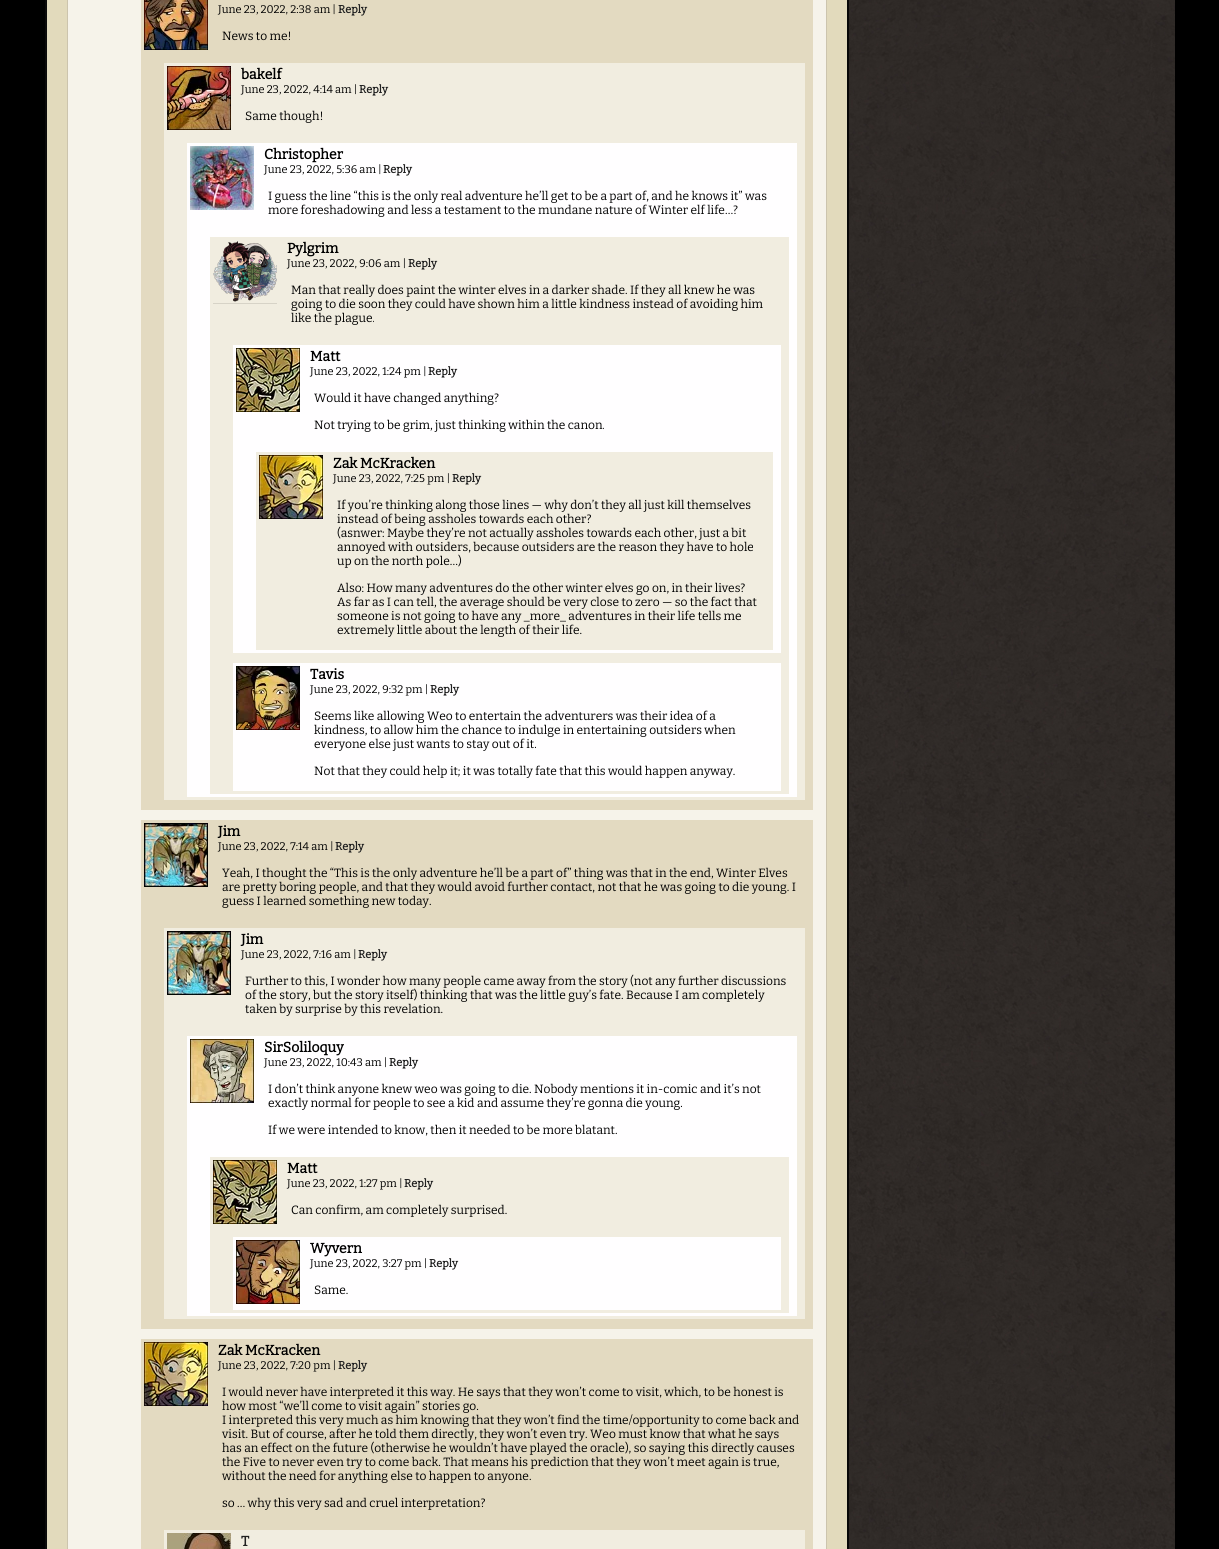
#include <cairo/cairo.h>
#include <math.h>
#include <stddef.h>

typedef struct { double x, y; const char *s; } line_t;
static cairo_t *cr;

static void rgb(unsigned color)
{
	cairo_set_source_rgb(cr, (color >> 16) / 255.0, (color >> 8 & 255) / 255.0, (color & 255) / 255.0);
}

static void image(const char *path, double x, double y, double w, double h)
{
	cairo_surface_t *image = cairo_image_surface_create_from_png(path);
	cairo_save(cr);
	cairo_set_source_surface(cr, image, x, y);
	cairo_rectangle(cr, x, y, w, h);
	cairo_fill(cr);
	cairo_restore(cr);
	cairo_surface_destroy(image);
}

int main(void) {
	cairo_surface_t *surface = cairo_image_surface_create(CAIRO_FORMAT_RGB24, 1219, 1549);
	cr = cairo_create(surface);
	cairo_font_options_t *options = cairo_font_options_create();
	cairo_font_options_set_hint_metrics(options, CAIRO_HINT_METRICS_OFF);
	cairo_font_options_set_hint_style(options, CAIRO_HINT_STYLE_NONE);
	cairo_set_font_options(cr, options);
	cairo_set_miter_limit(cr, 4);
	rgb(0x000000);
	cairo_paint(cr);
	image("img/1.png", 849, 0, 326, 1549);
	rgb(0xe2dabc);
	cairo_rectangle(cr, 47, 0, 800, 1549);
	cairo_fill(cr);
	rgb(0x070707);
	cairo_new_path(cr);
	cairo_move_to(cr, 849, -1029);
	cairo_line_to(cr, 849, 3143);
	cairo_line_to(cr, 847, 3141);
	cairo_line_to(cr, 847, -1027);
	cairo_close_path(cr);
	cairo_fill(cr);
	rgb(0x0b0b0b);
	cairo_new_path(cr);
	cairo_move_to(cr, 45, 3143);
	cairo_line_to(cr, 45, -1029);
	cairo_line_to(cr, 47, -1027);
	cairo_line_to(cr, 47, 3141);
	cairo_close_path(cr);
	cairo_fill(cr);
	rgb(0xf6f3ea);
	cairo_rectangle(cr, 67.5, -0.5, 759, 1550);
	cairo_fill_preserve(cr);
	rgb(0xccc4ad);
	cairo_set_line_width(cr, 1);
	cairo_stroke(cr);
	rgb(0xe3dac1);
	cairo_rectangle(cr, 141, 0, 672, 810);
	cairo_fill(cr);
	image("img/2.png", 144, 0, 64, 50);
	rgb(0xf1ede0);
	cairo_rectangle(cr, 164, 63, 641, 737);
	cairo_fill(cr);
	image("img/3.png", 167, 66, 64, 64);
	rgb(0xfffeff);
	cairo_rectangle(cr, 187, 143, 610, 654);
	cairo_fill(cr);
	image("img/4.png", 190, 146, 64, 64);
	rgb(0xf1ede0);
	cairo_rectangle(cr, 210, 237, 579, 557);
	cairo_fill(cr);
	image("img/5.png", 213, 241, 64, 63);
	rgb(0xfffeff);
	cairo_rectangle(cr, 233, 345, 548, 308);
	cairo_fill(cr);
	image("img/6.png", 236, 348, 64, 64);
	rgb(0xf1ede0);
	cairo_rectangle(cr, 256, 452, 517, 198);
	cairo_fill(cr);
	image("img/7.png", 259, 455, 64, 64);
	rgb(0xfffeff);
	cairo_rectangle(cr, 233, 663, 548, 128);
	cairo_fill(cr);
	image("img/8.png", 236, 666, 64, 64);
	rgb(0xe3dac1);
	cairo_rectangle(cr, 141, 820, 672, 509);
	cairo_fill(cr);
	image("img/9.png", 144, 823, 64, 64);
	rgb(0xf1ede0);
	cairo_rectangle(cr, 164, 928, 641, 391);
	cairo_fill(cr);
	image("img/9.png", 167, 931, 64, 64);
	rgb(0xfffeff);
	cairo_rectangle(cr, 187, 1036, 610, 280);
	cairo_fill(cr);
	image("img/10.png", 190, 1039, 64, 64);
	rgb(0xf1ede0);
	cairo_rectangle(cr, 210, 1157, 579, 156);
	cairo_fill(cr);
	image("img/6.png", 213, 1160, 64, 64);
	rgb(0xfffeff);
	cairo_rectangle(cr, 233, 1237, 548, 73);
	cairo_fill(cr);
	image("img/11.png", 236, 1240, 64, 64);
	rgb(0xe3dac1);
	cairo_rectangle(cr, 141, 1339, 672, 210);
	cairo_fill(cr);
	image("img/7.png", 144, 1342, 64, 64);
	rgb(0xf1ede0);
	cairo_rectangle(cr, 164, 1530, 641, 19);
	cairo_fill(cr);
	image("img/12.png", 167, 1533, 64, 16);
	cairo_select_font_face(cr, "Bitter Thin", CAIRO_FONT_SLANT_NORMAL, CAIRO_FONT_WEIGHT_NORMAL);
	cairo_set_font_size(cr, 11);
	rgb(0x000000);
	cairo_move_to(cr, 218, 13);
	cairo_show_text(cr, "June 23, 2022, 2:38 am |");
	cairo_select_font_face(cr, "Bitter", CAIRO_FONT_SLANT_NORMAL, CAIRO_FONT_WEIGHT_BOLD);
	rgb(0x212121);
	cairo_move_to(cr, 338, 13);
	cairo_show_text(cr, "Reply");
	cairo_select_font_face(cr, "Bitter Thin", CAIRO_FONT_SLANT_NORMAL, CAIRO_FONT_WEIGHT_NORMAL);
	cairo_set_font_size(cr, 12);
	rgb(0x000000);
	cairo_move_to(cr, 222, 40);
	cairo_show_text(cr, "News to me!");
	cairo_select_font_face(cr, "Bitter", CAIRO_FONT_SLANT_NORMAL, CAIRO_FONT_WEIGHT_BOLD);
	cairo_set_font_size(cr, 14);
	cairo_move_to(cr, 241, 79);
	cairo_show_text(cr, "bakelf");
	cairo_select_font_face(cr, "Bitter Thin", CAIRO_FONT_SLANT_NORMAL, CAIRO_FONT_WEIGHT_NORMAL);
	cairo_set_font_size(cr, 11);
	cairo_move_to(cr, 241, 93);
	cairo_show_text(cr, "June 23, 2022, 4:14 am |");
	cairo_select_font_face(cr, "Bitter", CAIRO_FONT_SLANT_NORMAL, CAIRO_FONT_WEIGHT_BOLD);
	rgb(0x212121);
	cairo_move_to(cr, 359, 93);
	cairo_show_text(cr, "Reply");
	cairo_select_font_face(cr, "Bitter Thin", CAIRO_FONT_SLANT_NORMAL, CAIRO_FONT_WEIGHT_NORMAL);
	cairo_set_font_size(cr, 12);
	rgb(0x000000);
	cairo_move_to(cr, 245, 120);
	cairo_show_text(cr, "Same though!");
	cairo_select_font_face(cr, "Bitter", CAIRO_FONT_SLANT_NORMAL, CAIRO_FONT_WEIGHT_BOLD);
	cairo_set_font_size(cr, 14);
	cairo_move_to(cr, 264, 159);
	cairo_show_text(cr, "Christopher");
	cairo_select_font_face(cr, "Bitter Thin", CAIRO_FONT_SLANT_NORMAL, CAIRO_FONT_WEIGHT_NORMAL);
	cairo_set_font_size(cr, 11);
	cairo_move_to(cr, 264, 173);
	cairo_show_text(cr, "June 23, 2022, 5:36 am |");
	cairo_select_font_face(cr, "Bitter", CAIRO_FONT_SLANT_NORMAL, CAIRO_FONT_WEIGHT_BOLD);
	rgb(0x212121);
	cairo_move_to(cr, 383, 173);
	cairo_show_text(cr, "Reply");
	cairo_select_font_face(cr, "Bitter Thin", CAIRO_FONT_SLANT_NORMAL, CAIRO_FONT_WEIGHT_NORMAL);
	cairo_set_font_size(cr, 12);
	rgb(0x000000);
	cairo_move_to(cr, 268, 200);
	cairo_show_text(cr, "I guess the line “this is the only real adventure he’ll get to be a part of, and he knows it” was");
	cairo_move_to(cr, 268, 214);
	cairo_show_text(cr, "more foreshadowing and less a testament to the mundane nature of Winter elf life…?");
	cairo_select_font_face(cr, "Bitter", CAIRO_FONT_SLANT_NORMAL, CAIRO_FONT_WEIGHT_BOLD);
	cairo_set_font_size(cr, 14);
	cairo_move_to(cr, 287, 253);
	cairo_show_text(cr, "Pylgrim");
	cairo_select_font_face(cr, "Bitter Thin", CAIRO_FONT_SLANT_NORMAL, CAIRO_FONT_WEIGHT_NORMAL);
	cairo_set_font_size(cr, 11);
	cairo_move_to(cr, 287, 267);
	cairo_show_text(cr, "June 23, 2022, 9:06 am |");
	cairo_select_font_face(cr, "Bitter", CAIRO_FONT_SLANT_NORMAL, CAIRO_FONT_WEIGHT_BOLD);
	rgb(0x212121);
	cairo_move_to(cr, 408, 267);
	cairo_show_text(cr, "Reply");
	cairo_select_font_face(cr, "Bitter Thin", CAIRO_FONT_SLANT_NORMAL, CAIRO_FONT_WEIGHT_NORMAL);
	cairo_set_font_size(cr, 12);
	rgb(0x000000);
	{
		static const line_t items[] = {
			{291, 294, "Man that really does paint the winter elves in a darker shade. If they all knew he was"},
			{291, 308, "going to die soon they could have shown him a little kindness instead of avoiding him"},
			{291, 322, "like the plague."},
		};
		for (size_t i = 0; i < sizeof items / sizeof *items; i++) {
			cairo_move_to(cr, items[i].x, items[i].y);
			cairo_show_text(cr, items[i].s);
		}
	}
	cairo_select_font_face(cr, "Bitter", CAIRO_FONT_SLANT_NORMAL, CAIRO_FONT_WEIGHT_BOLD);
	cairo_set_font_size(cr, 14);
	cairo_move_to(cr, 310, 361);
	cairo_show_text(cr, "Matt");
	cairo_select_font_face(cr, "Bitter Thin", CAIRO_FONT_SLANT_NORMAL, CAIRO_FONT_WEIGHT_NORMAL);
	cairo_set_font_size(cr, 11);
	cairo_move_to(cr, 310, 375);
	cairo_show_text(cr, "June 23, 2022, 1:24 pm |");
	cairo_select_font_face(cr, "Bitter", CAIRO_FONT_SLANT_NORMAL, CAIRO_FONT_WEIGHT_BOLD);
	rgb(0x212121);
	cairo_move_to(cr, 428, 375);
	cairo_show_text(cr, "Reply");
	cairo_select_font_face(cr, "Bitter Thin", CAIRO_FONT_SLANT_NORMAL, CAIRO_FONT_WEIGHT_NORMAL);
	cairo_set_font_size(cr, 12);
	rgb(0x000000);
	cairo_move_to(cr, 314, 402);
	cairo_show_text(cr, "Would it have changed anything?");
	cairo_move_to(cr, 314, 429);
	cairo_show_text(cr, "Not trying to be grim, just thinking within the canon.");
	cairo_select_font_face(cr, "Bitter", CAIRO_FONT_SLANT_NORMAL, CAIRO_FONT_WEIGHT_BOLD);
	cairo_set_font_size(cr, 14);
	cairo_move_to(cr, 333, 468);
	cairo_show_text(cr, "Zak McKracken");
	cairo_select_font_face(cr, "Bitter Thin", CAIRO_FONT_SLANT_NORMAL, CAIRO_FONT_WEIGHT_NORMAL);
	cairo_set_font_size(cr, 11);
	cairo_move_to(cr, 333, 482);
	cairo_show_text(cr, "June 23, 2022, 7:25 pm |");
	cairo_select_font_face(cr, "Bitter", CAIRO_FONT_SLANT_NORMAL, CAIRO_FONT_WEIGHT_BOLD);
	rgb(0x212121);
	cairo_move_to(cr, 452, 482);
	cairo_show_text(cr, "Reply");
	cairo_select_font_face(cr, "Bitter Thin", CAIRO_FONT_SLANT_NORMAL, CAIRO_FONT_WEIGHT_NORMAL);
	cairo_set_font_size(cr, 12);
	rgb(0x000000);
	{
		static const line_t items[] = {
			{337, 509, "If you’re thinking along those lines — why don’t they all just kill themselves"},
			{337, 523, "instead of being assholes towards each other?"},
			{337, 537, "(asnwer: Maybe they’re not actually assholes towards each other, just a bit"},
			{337, 551, "annoyed with outsiders, because outsiders are the reason they have to hole"},
			{337, 565, "up on the north pole…)"},
			{337, 592, "Also: How many adventures do the other winter elves go on, in their lives?"},
			{337, 606, "As far as I can tell, the average should be very close to zero — so the fact that"},
			{337, 620, "someone is not going to have any _more_ adventures in their life tells me"},
			{337, 634, "extremely little about the length of their life."},
		};
		for (size_t i = 0; i < sizeof items / sizeof *items; i++) {
			cairo_move_to(cr, items[i].x, items[i].y);
			cairo_show_text(cr, items[i].s);
		}
	}
	cairo_select_font_face(cr, "Bitter", CAIRO_FONT_SLANT_NORMAL, CAIRO_FONT_WEIGHT_BOLD);
	cairo_set_font_size(cr, 14);
	cairo_move_to(cr, 310, 679);
	cairo_show_text(cr, "Tavis");
	cairo_select_font_face(cr, "Bitter Thin", CAIRO_FONT_SLANT_NORMAL, CAIRO_FONT_WEIGHT_NORMAL);
	cairo_set_font_size(cr, 11);
	cairo_move_to(cr, 310, 693);
	cairo_show_text(cr, "June 23, 2022, 9:32 pm |");
	cairo_select_font_face(cr, "Bitter", CAIRO_FONT_SLANT_NORMAL, CAIRO_FONT_WEIGHT_BOLD);
	rgb(0x212121);
	cairo_move_to(cr, 430, 693);
	cairo_show_text(cr, "Reply");
	cairo_select_font_face(cr, "Bitter Thin", CAIRO_FONT_SLANT_NORMAL, CAIRO_FONT_WEIGHT_NORMAL);
	cairo_set_font_size(cr, 12);
	rgb(0x000000);
	{
		static const line_t items[] = {
			{314, 720, "Seems like allowing Weo to entertain the adventurers was their idea of a"},
			{314, 734, "kindness, to allow him the chance to indulge in entertaining outsiders when"},
			{314, 748, "everyone else just wants to stay out of it."},
			{314, 775, "Not that they could help it; it was totally fate that this would happen anyway."},
		};
		for (size_t i = 0; i < sizeof items / sizeof *items; i++) {
			cairo_move_to(cr, items[i].x, items[i].y);
			cairo_show_text(cr, items[i].s);
		}
	}
	cairo_select_font_face(cr, "Bitter", CAIRO_FONT_SLANT_NORMAL, CAIRO_FONT_WEIGHT_BOLD);
	cairo_set_font_size(cr, 14);
	cairo_move_to(cr, 218, 836);
	cairo_show_text(cr, "Jim");
	cairo_select_font_face(cr, "Bitter Thin", CAIRO_FONT_SLANT_NORMAL, CAIRO_FONT_WEIGHT_NORMAL);
	cairo_set_font_size(cr, 11);
	cairo_move_to(cr, 218, 850);
	cairo_show_text(cr, "June 23, 2022, 7:14 am |");
	cairo_select_font_face(cr, "Bitter", CAIRO_FONT_SLANT_NORMAL, CAIRO_FONT_WEIGHT_BOLD);
	rgb(0x212121);
	cairo_move_to(cr, 335, 850);
	cairo_show_text(cr, "Reply");
	cairo_select_font_face(cr, "Bitter Thin", CAIRO_FONT_SLANT_NORMAL, CAIRO_FONT_WEIGHT_NORMAL);
	cairo_set_font_size(cr, 12);
	rgb(0x000000);
	{
		static const line_t items[] = {
			{222, 877, "Yeah, I thought the “This is the only adventure he’ll be a part of” thing was that in the end, Winter Elves"},
			{222, 891, "are pretty boring people, and that they would avoid further contact, not that he was going to die young. I"},
			{222, 905, "guess I learned something new today."},
		};
		for (size_t i = 0; i < sizeof items / sizeof *items; i++) {
			cairo_move_to(cr, items[i].x, items[i].y);
			cairo_show_text(cr, items[i].s);
		}
	}
	cairo_select_font_face(cr, "Bitter", CAIRO_FONT_SLANT_NORMAL, CAIRO_FONT_WEIGHT_BOLD);
	cairo_set_font_size(cr, 14);
	cairo_move_to(cr, 241, 944);
	cairo_show_text(cr, "Jim");
	cairo_select_font_face(cr, "Bitter Thin", CAIRO_FONT_SLANT_NORMAL, CAIRO_FONT_WEIGHT_NORMAL);
	cairo_set_font_size(cr, 11);
	cairo_move_to(cr, 241, 958);
	cairo_show_text(cr, "June 23, 2022, 7:16 am |");
	cairo_select_font_face(cr, "Bitter", CAIRO_FONT_SLANT_NORMAL, CAIRO_FONT_WEIGHT_BOLD);
	rgb(0x212121);
	cairo_move_to(cr, 358, 958);
	cairo_show_text(cr, "Reply");
	cairo_select_font_face(cr, "Bitter Thin", CAIRO_FONT_SLANT_NORMAL, CAIRO_FONT_WEIGHT_NORMAL);
	cairo_set_font_size(cr, 12);
	rgb(0x000000);
	{
		static const line_t items[] = {
			{245, 985, "Further to this, I wonder how many people came away from the story (not any further discussions"},
			{245, 999, "of the story, but the story itself) thinking that was the little guy’s fate. Because I am completely"},
			{245, 1013, "taken by surprise by this revelation."},
		};
		for (size_t i = 0; i < sizeof items / sizeof *items; i++) {
			cairo_move_to(cr, items[i].x, items[i].y);
			cairo_show_text(cr, items[i].s);
		}
	}
	cairo_select_font_face(cr, "Bitter", CAIRO_FONT_SLANT_NORMAL, CAIRO_FONT_WEIGHT_BOLD);
	cairo_set_font_size(cr, 14);
	cairo_move_to(cr, 264, 1052);
	cairo_show_text(cr, "SirSoliloquy");
	cairo_select_font_face(cr, "Bitter Thin", CAIRO_FONT_SLANT_NORMAL, CAIRO_FONT_WEIGHT_NORMAL);
	cairo_set_font_size(cr, 11);
	cairo_move_to(cr, 264, 1066);
	cairo_show_text(cr, "June 23, 2022, 10:43 am |");
	cairo_select_font_face(cr, "Bitter", CAIRO_FONT_SLANT_NORMAL, CAIRO_FONT_WEIGHT_BOLD);
	rgb(0x212121);
	cairo_move_to(cr, 389, 1066);
	cairo_show_text(cr, "Reply");
	cairo_select_font_face(cr, "Bitter Thin", CAIRO_FONT_SLANT_NORMAL, CAIRO_FONT_WEIGHT_NORMAL);
	cairo_set_font_size(cr, 12);
	rgb(0x000000);
	{
		static const line_t items[] = {
			{268, 1093, "I don’t think anyone knew weo was going to die. Nobody mentions it in-comic and it’s not"},
			{268, 1107, "exactly normal for people to see a kid and assume they’re gonna die young."},
			{268, 1134, "If we were intended to know, then it needed to be more blatant."},
		};
		for (size_t i = 0; i < sizeof items / sizeof *items; i++) {
			cairo_move_to(cr, items[i].x, items[i].y);
			cairo_show_text(cr, items[i].s);
		}
	}
	cairo_select_font_face(cr, "Bitter", CAIRO_FONT_SLANT_NORMAL, CAIRO_FONT_WEIGHT_BOLD);
	cairo_set_font_size(cr, 14);
	cairo_move_to(cr, 287, 1173);
	cairo_show_text(cr, "Matt");
	cairo_select_font_face(cr, "Bitter Thin", CAIRO_FONT_SLANT_NORMAL, CAIRO_FONT_WEIGHT_NORMAL);
	cairo_set_font_size(cr, 11);
	cairo_move_to(cr, 287, 1187);
	cairo_show_text(cr, "June 23, 2022, 1:27 pm |");
	cairo_select_font_face(cr, "Bitter", CAIRO_FONT_SLANT_NORMAL, CAIRO_FONT_WEIGHT_BOLD);
	rgb(0x212121);
	cairo_move_to(cr, 404, 1187);
	cairo_show_text(cr, "Reply");
	cairo_select_font_face(cr, "Bitter Thin", CAIRO_FONT_SLANT_NORMAL, CAIRO_FONT_WEIGHT_NORMAL);
	cairo_set_font_size(cr, 12);
	rgb(0x000000);
	cairo_move_to(cr, 291, 1214);
	cairo_show_text(cr, "Can confirm, am completely surprised.");
	cairo_select_font_face(cr, "Bitter", CAIRO_FONT_SLANT_NORMAL, CAIRO_FONT_WEIGHT_BOLD);
	cairo_set_font_size(cr, 14);
	cairo_move_to(cr, 310, 1253);
	cairo_show_text(cr, "Wyvern");
	cairo_select_font_face(cr, "Bitter Thin", CAIRO_FONT_SLANT_NORMAL, CAIRO_FONT_WEIGHT_NORMAL);
	cairo_set_font_size(cr, 11);
	cairo_move_to(cr, 310, 1267);
	cairo_show_text(cr, "June 23, 2022, 3:27 pm |");
	cairo_select_font_face(cr, "Bitter", CAIRO_FONT_SLANT_NORMAL, CAIRO_FONT_WEIGHT_BOLD);
	rgb(0x212121);
	cairo_move_to(cr, 429, 1267);
	cairo_show_text(cr, "Reply");
	cairo_select_font_face(cr, "Bitter Thin", CAIRO_FONT_SLANT_NORMAL, CAIRO_FONT_WEIGHT_NORMAL);
	cairo_set_font_size(cr, 12);
	rgb(0x000000);
	cairo_move_to(cr, 314, 1294);
	cairo_show_text(cr, "Same.");
	cairo_select_font_face(cr, "Bitter", CAIRO_FONT_SLANT_NORMAL, CAIRO_FONT_WEIGHT_BOLD);
	cairo_set_font_size(cr, 14);
	cairo_move_to(cr, 218, 1355);
	cairo_show_text(cr, "Zak McKracken");
	cairo_select_font_face(cr, "Bitter Thin", CAIRO_FONT_SLANT_NORMAL, CAIRO_FONT_WEIGHT_NORMAL);
	cairo_set_font_size(cr, 11);
	cairo_move_to(cr, 218, 1369);
	cairo_show_text(cr, "June 23, 2022, 7:20 pm |");
	cairo_select_font_face(cr, "Bitter", CAIRO_FONT_SLANT_NORMAL, CAIRO_FONT_WEIGHT_BOLD);
	rgb(0x212121);
	cairo_move_to(cr, 338, 1369);
	cairo_show_text(cr, "Reply");
	cairo_select_font_face(cr, "Bitter Thin", CAIRO_FONT_SLANT_NORMAL, CAIRO_FONT_WEIGHT_NORMAL);
	cairo_set_font_size(cr, 12);
	rgb(0x000000);
	{
		static const line_t items[] = {
			{222, 1396, "I would never have interpreted it this way. He says that they won’t come to visit, which, to be honest is"},
			{222, 1410, "how most “we’ll come to visit again” stories go."},
			{222, 1424, "I interpreted this very much as him knowing that they won’t find the time/opportunity to come back and"},
			{222, 1438, "visit. But of course, after he told them directly, they won’t even try. Weo must know that what he says"},
			{222, 1452, "has an effect on the future (otherwise he wouldn’t have played the oracle), so saying this directly causes"},
			{222, 1466, "the Five to never even try to come back. That means his prediction that they won’t meet again is true,"},
			{222, 1480, "without the need for anything else to happen to anyone."},
			{222, 1507, "so … why this very sad and cruel interpretation?"},
		};
		for (size_t i = 0; i < sizeof items / sizeof *items; i++) {
			cairo_move_to(cr, items[i].x, items[i].y);
			cairo_show_text(cr, items[i].s);
		}
	}
	cairo_select_font_face(cr, "Bitter", CAIRO_FONT_SLANT_NORMAL, CAIRO_FONT_WEIGHT_BOLD);
	cairo_set_font_size(cr, 14);
	rgb(0x212121);
	cairo_move_to(cr, 241, 1546);
	cairo_show_text(cr, "T");
	cairo_surface_write_to_png(surface, "page.png");
	cairo_font_options_destroy(options);
	cairo_destroy(cr);
	cairo_surface_destroy(surface);
	return 0;
}
